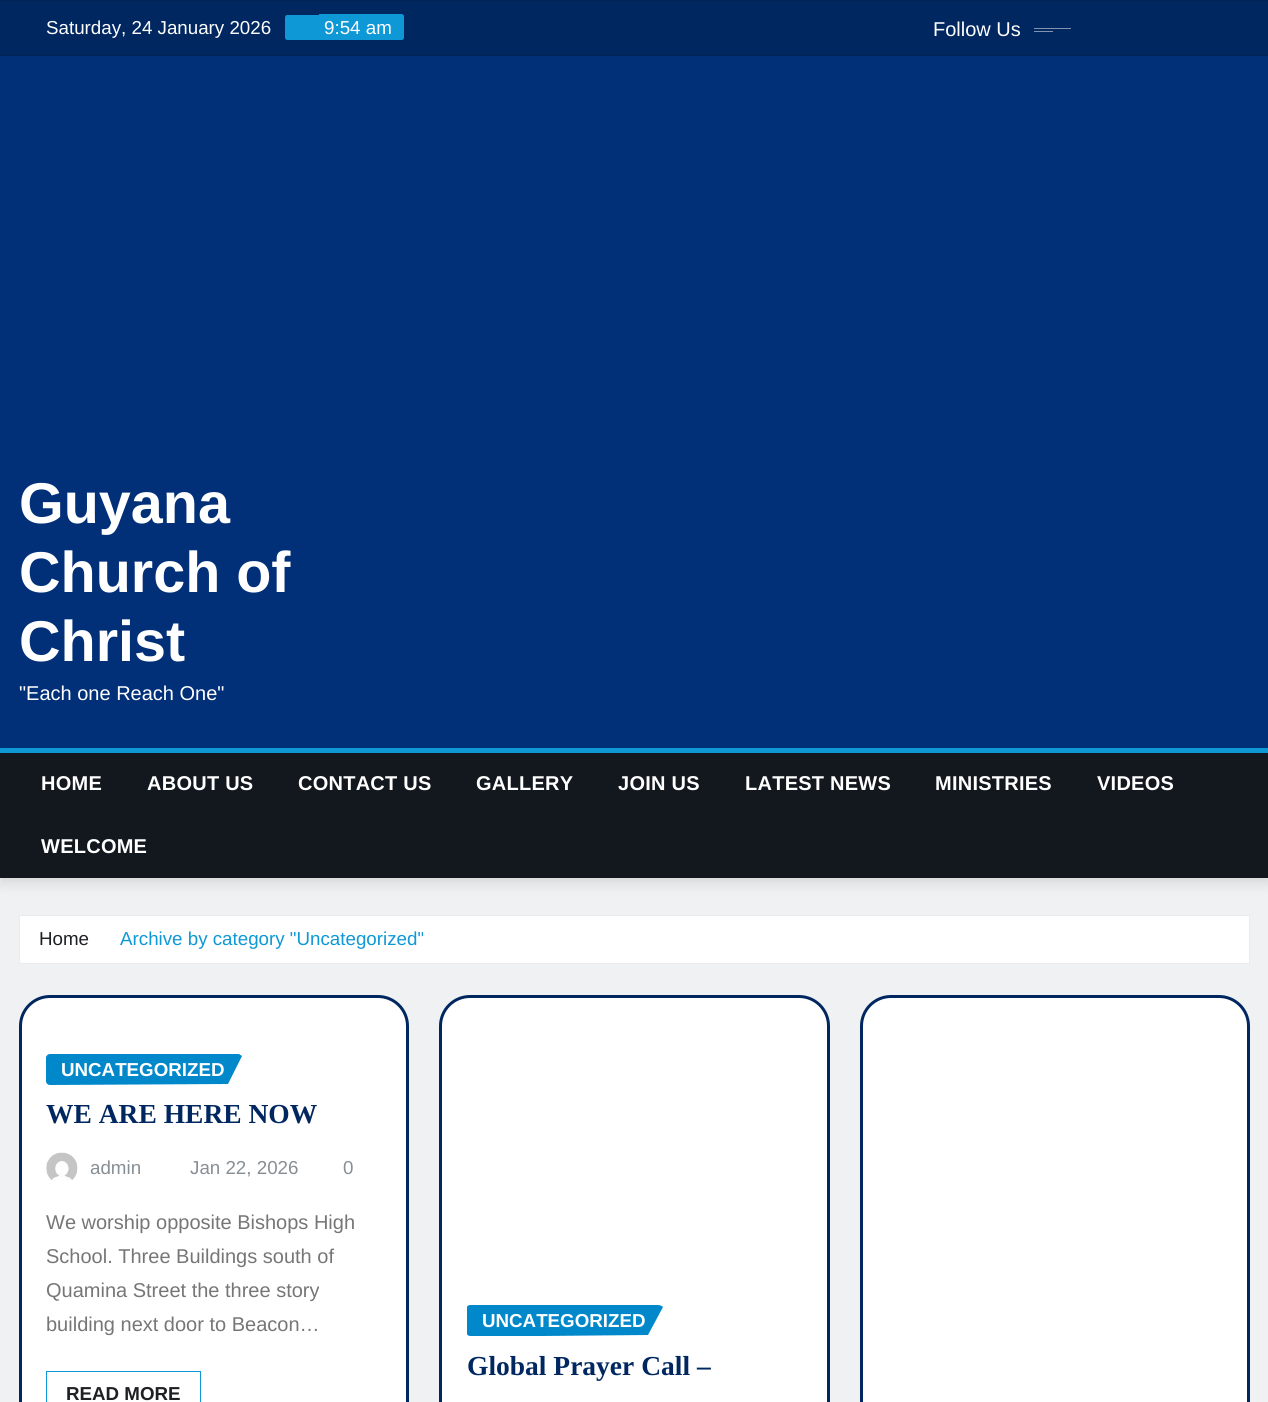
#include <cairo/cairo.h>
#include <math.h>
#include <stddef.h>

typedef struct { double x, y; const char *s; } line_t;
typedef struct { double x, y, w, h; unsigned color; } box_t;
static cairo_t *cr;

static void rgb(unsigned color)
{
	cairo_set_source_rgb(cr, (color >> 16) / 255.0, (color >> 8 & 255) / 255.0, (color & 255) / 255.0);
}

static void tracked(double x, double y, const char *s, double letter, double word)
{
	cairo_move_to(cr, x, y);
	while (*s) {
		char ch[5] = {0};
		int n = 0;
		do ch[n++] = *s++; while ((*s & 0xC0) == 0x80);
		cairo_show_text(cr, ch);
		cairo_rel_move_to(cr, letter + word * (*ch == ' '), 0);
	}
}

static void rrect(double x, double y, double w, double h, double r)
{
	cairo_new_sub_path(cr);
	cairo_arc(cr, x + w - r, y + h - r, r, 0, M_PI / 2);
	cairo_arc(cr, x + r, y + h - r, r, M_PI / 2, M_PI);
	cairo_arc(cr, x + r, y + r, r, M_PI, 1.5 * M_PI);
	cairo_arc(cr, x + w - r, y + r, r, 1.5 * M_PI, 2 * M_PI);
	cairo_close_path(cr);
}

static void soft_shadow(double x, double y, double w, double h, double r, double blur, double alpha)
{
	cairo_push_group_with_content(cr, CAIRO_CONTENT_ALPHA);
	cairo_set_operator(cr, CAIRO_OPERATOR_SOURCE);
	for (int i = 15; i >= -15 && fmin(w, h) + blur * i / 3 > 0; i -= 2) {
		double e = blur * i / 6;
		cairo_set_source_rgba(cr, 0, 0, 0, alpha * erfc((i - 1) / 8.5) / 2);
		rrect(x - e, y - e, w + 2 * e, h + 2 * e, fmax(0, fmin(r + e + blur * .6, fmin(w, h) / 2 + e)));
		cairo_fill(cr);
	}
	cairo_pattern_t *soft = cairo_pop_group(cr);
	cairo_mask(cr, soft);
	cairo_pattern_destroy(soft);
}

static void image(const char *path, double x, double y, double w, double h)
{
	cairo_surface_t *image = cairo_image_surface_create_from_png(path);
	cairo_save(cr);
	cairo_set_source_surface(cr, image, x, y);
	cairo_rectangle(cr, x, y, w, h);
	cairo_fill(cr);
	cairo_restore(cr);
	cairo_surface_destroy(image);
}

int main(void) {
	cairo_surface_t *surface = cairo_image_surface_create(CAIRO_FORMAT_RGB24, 1268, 1402);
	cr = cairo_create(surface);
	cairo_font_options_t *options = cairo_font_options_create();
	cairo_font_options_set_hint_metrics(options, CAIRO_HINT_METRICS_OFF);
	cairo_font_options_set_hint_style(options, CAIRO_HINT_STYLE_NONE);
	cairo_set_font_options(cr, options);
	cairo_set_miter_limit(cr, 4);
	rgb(0xf0f1f3);
	cairo_paint(cr);
	{
		static const box_t items[] = {
			{0, 1, 1268, 54, 0x012761},
			{0, 0, 1268, 1, 0x012357},
			{0, 55, 1268, 1, 0x012357},
		};
		for (size_t i = 0; i < sizeof items / sizeof *items; i++) {
			rgb(items[i].color);
			cairo_rectangle(cr, items[i].x, items[i].y, items[i].w, items[i].h);
			cairo_fill(cr);
		}
	}
	rgb(0x0e98d6);
	cairo_new_path(cr);
	cairo_move_to(cr, 287.5, 15);
	cairo_line_to(cr, 319, 15);
	cairo_line_to(cr, 319, 40);
	cairo_line_to(cr, 287.5, 40);
	cairo_curve_to(cr, 286, 40, 285, 39, 285, 37.5);
	cairo_line_to(cr, 285, 17.5);
	cairo_curve_to(cr, 285, 16, 286, 15, 287.5, 15);
	cairo_close_path(cr);
	cairo_fill(cr);
	cairo_new_path(cr);
	cairo_move_to(cr, 319, 14);
	cairo_line_to(cr, 401.5, 14);
	cairo_curve_to(cr, 403, 14, 404, 15, 404, 16.5);
	cairo_line_to(cr, 404, 37.5);
	cairo_curve_to(cr, 404, 39, 403, 40, 401.5, 40);
	cairo_line_to(cr, 319, 40);
	cairo_close_path(cr);
	cairo_fill(cr);
	{
		static const box_t items[] = {
			{1034, 28, 37, 1, 0x8093b0},
			{1034, 31, 19, 1, 0x8093b0},
			{0, 56, 1268, 692, 0x013079},
		};
		for (size_t i = 0; i < sizeof items / sizeof *items; i++) {
			rgb(items[i].color);
			cairo_rectangle(cr, items[i].x, items[i].y, items[i].w, items[i].h);
			cairo_fill(cr);
		}
	}
	rgb(0x000000);
	soft_shadow(0, 754, 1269, 130, 0, 6, 0.1);
	rgb(0x13171e);
	cairo_rectangle(cr, 0, 753, 1268, 125);
	cairo_fill(cr);
	rgb(0x0e98d6);
	cairo_rectangle(cr, 0, 748, 1268, 5);
	cairo_fill(cr);
	rgb(0xffffff);
	cairo_rectangle(cr, 19.5, 915.5, 1230, 48);
	cairo_fill_preserve(cr);
	rgb(0xebebeb);
	cairo_set_line_width(cr, 1);
	cairo_stroke(cr);
	rgb(0xffffff);
	cairo_new_path(cr);
	cairo_move_to(cr, 50, 998);
	cairo_line_to(cr, 378, 998);
	cairo_curve_to(cr, 393, 998, 406, 1010, 406, 1026);
	cairo_line_to(cr, 406, 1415);
	cairo_curve_to(cr, 406, 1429, 393, 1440, 378, 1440);
	cairo_line_to(cr, 50, 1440);
	cairo_curve_to(cr, 34, 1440, 21, 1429, 21, 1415);
	cairo_line_to(cr, 21, 1026);
	cairo_curve_to(cr, 21, 1010, 34, 998, 50, 998);
	cairo_close_path(cr);
	cairo_fill(cr);
	rrect(20.5, 996.5, 387, 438, 29.5);
	rgb(0x012761);
	cairo_set_line_width(cr, 3);
	cairo_stroke(cr);
	rgb(0x0088cb);
	cairo_new_path(cr);
	cairo_move_to(cr, 50, 1054);
	cairo_line_to(cr, 239, 1054);
	cairo_line_to(cr, 242, 1056);
	cairo_line_to(cr, 228, 1084);
	cairo_line_to(cr, 50, 1085);
	cairo_curve_to(cr, 48, 1085, 47, 1084, 46, 1082);
	cairo_line_to(cr, 46, 1057);
	cairo_curve_to(cr, 47, 1055, 48, 1054, 50, 1054);
	cairo_close_path(cr);
	cairo_fill(cr);
	image("img/1.png", 46, 1152, 32, 30);
	cairo_rectangle(cr, 46.5, 1371.5, 154, 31);
	rgb(0x0e98d6);
	cairo_set_line_width(cr, 1);
	cairo_stroke(cr);
	rgb(0xffffff);
	cairo_new_path(cr);
	cairo_move_to(cr, 470, 998);
	cairo_line_to(cr, 799, 998);
	cairo_curve_to(cr, 815, 998, 828, 1010, 828, 1026);
	cairo_line_to(cr, 828, 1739);
	cairo_curve_to(cr, 828, 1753, 815, 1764, 799, 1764);
	cairo_line_to(cr, 470, 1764);
	cairo_curve_to(cr, 454, 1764, 441, 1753, 441, 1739);
	cairo_line_to(cr, 441, 1026);
	cairo_curve_to(cr, 441, 1010, 454, 998, 470, 998);
	cairo_close_path(cr);
	cairo_fill(cr);
	rrect(440.5, 996.5, 388, 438, 29.5);
	rgb(0x012761);
	cairo_set_line_width(cr, 3);
	cairo_stroke(cr);
	rgb(0x0088cb);
	cairo_new_path(cr);
	cairo_move_to(cr, 470, 1305);
	cairo_line_to(cr, 658, 1305);
	cairo_curve_to(cr, 660, 1305, 662, 1306, 663, 1307);
	cairo_line_to(cr, 648, 1335);
	cairo_line_to(cr, 542, 1336);
	cairo_line_to(cr, 470, 1336);
	cairo_curve_to(cr, 469, 1336, 467, 1335, 467, 1334);
	cairo_line_to(cr, 467, 1307);
	cairo_curve_to(cr, 467, 1306, 469, 1305, 470, 1305);
	cairo_close_path(cr);
	cairo_fill(cr);
	rgb(0xffffff);
	cairo_new_path(cr);
	cairo_move_to(cr, 891, 998);
	cairo_line_to(cr, 1219, 998);
	cairo_curve_to(cr, 1235, 998, 1248, 1010, 1248, 1026);
	cairo_line_to(cr, 1248, 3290);
	cairo_curve_to(cr, 1248, 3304, 1235, 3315, 1219, 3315);
	cairo_line_to(cr, 891, 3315);
	cairo_curve_to(cr, 875, 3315, 862, 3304, 862, 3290);
	cairo_line_to(cr, 862, 1026);
	cairo_curve_to(cr, 862, 1010, 875, 998, 891, 998);
	cairo_close_path(cr);
	cairo_fill(cr);
	rrect(861.5, 996.5, 387, 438, 29.5);
	rgb(0x012761);
	cairo_stroke(cr);
	cairo_select_font_face(cr, "Liberation Sans", CAIRO_FONT_SLANT_NORMAL, CAIRO_FONT_WEIGHT_NORMAL);
	cairo_set_font_size(cr, 18.75);
	rgb(0xffffff);
	cairo_move_to(cr, 46, 34);
	cairo_show_text(cr, "Saturday, 24 January 2026");
	cairo_move_to(cr, 324, 34);
	cairo_show_text(cr, "9:54 am");
	cairo_set_font_size(cr, 20);
	cairo_move_to(cr, 933, 36);
	cairo_show_text(cr, "Follow Us");
	cairo_select_font_face(cr, "Liberation Sans", CAIRO_FONT_SLANT_NORMAL, CAIRO_FONT_WEIGHT_BOLD);
	cairo_set_font_size(cr, 57.5);
	{
		static const line_t items[] = {
			{19, 523, "Guyana"},
			{19, 592, "Church of"},
			{19, 661, "Christ"},
		};
		for (size_t i = 0; i < sizeof items / sizeof *items; i++) {
			cairo_move_to(cr, items[i].x, items[i].y);
			cairo_show_text(cr, items[i].s);
		}
	}
	cairo_select_font_face(cr, "Liberation Sans", CAIRO_FONT_SLANT_NORMAL, CAIRO_FONT_WEIGHT_NORMAL);
	cairo_set_font_size(cr, 20);
	cairo_move_to(cr, 19, 700);
	cairo_show_text(cr, "\"Each one Reach One\"");
	cairo_select_font_face(cr, "Liberation Sans", CAIRO_FONT_SLANT_NORMAL, CAIRO_FONT_WEIGHT_BOLD);
	{
		static const line_t items[] = {
			{41, 790, "HOME"},
			{147, 790, "ABOUT US"},
			{298, 790, "CONTACT US"},
			{476, 790, "GALLERY"},
			{618, 790, "JOIN US"},
			{745, 790, "LATEST NEWS"},
			{935, 790, "MINISTRIES"},
			{1097, 790, "VIDEOS"},
			{41, 853, "WELCOME"},
		};
		for (size_t i = 0; i < sizeof items / sizeof *items; i++) {
			tracked(items[i].x, items[i].y, items[i].s, 0.25, 0);
		}
	}
	cairo_select_font_face(cr, "Liberation Sans", CAIRO_FONT_SLANT_NORMAL, CAIRO_FONT_WEIGHT_NORMAL);
	cairo_set_font_size(cr, 18.75);
	rgb(0x1f2024);
	cairo_move_to(cr, 39, 945);
	cairo_show_text(cr, "Home");
	rgb(0x0e98d6);
	cairo_move_to(cr, 120, 945);
	cairo_show_text(cr, "Archive by category \"Uncategorized\"");
	cairo_select_font_face(cr, "Liberation Sans", CAIRO_FONT_SLANT_NORMAL, CAIRO_FONT_WEIGHT_BOLD);
	rgb(0xffffff);
	cairo_move_to(cr, 61, 1076);
	cairo_show_text(cr, "UNCATEGORIZED");
	cairo_select_font_face(cr, "Liberation Serif", CAIRO_FONT_SLANT_NORMAL, CAIRO_FONT_WEIGHT_BOLD);
	cairo_set_font_size(cr, 27.5);
	rgb(0x012761);
	cairo_move_to(cr, 46, 1123);
	cairo_show_text(cr, "WE ARE HERE NOW");
	cairo_select_font_face(cr, "Liberation Sans", CAIRO_FONT_SLANT_NORMAL, CAIRO_FONT_WEIGHT_NORMAL);
	cairo_set_font_size(cr, 18.75);
	rgb(0x878e94);
	{
		static const line_t items[] = {
			{90, 1174, "admin"},
			{190, 1174, "Jan 22, 2026"},
			{343, 1174, "0"},
		};
		for (size_t i = 0; i < sizeof items / sizeof *items; i++) {
			cairo_move_to(cr, items[i].x, items[i].y);
			cairo_show_text(cr, items[i].s);
		}
	}
	cairo_set_font_size(cr, 20);
	rgb(0x767676);
	{
		static const line_t items[] = {
			{46, 1229, "We worship opposite Bishops High"},
			{46, 1263, "School. Three Buildings south of"},
			{46, 1297, "Quamina Street the three story"},
			{46, 1331, "building next door to Beacon…"},
		};
		for (size_t i = 0; i < sizeof items / sizeof *items; i++) {
			cairo_move_to(cr, items[i].x, items[i].y);
			cairo_show_text(cr, items[i].s);
		}
	}
	cairo_select_font_face(cr, "Liberation Sans", CAIRO_FONT_SLANT_NORMAL, CAIRO_FONT_WEIGHT_BOLD);
	cairo_set_font_size(cr, 18.75);
	rgb(0x1f2024);
	cairo_move_to(cr, 66, 1400);
	cairo_show_text(cr, "READ MORE");
	rgb(0xffffff);
	cairo_move_to(cr, 482, 1327);
	cairo_show_text(cr, "UNCATEGORIZED");
	cairo_select_font_face(cr, "Liberation Serif", CAIRO_FONT_SLANT_NORMAL, CAIRO_FONT_WEIGHT_BOLD);
	cairo_set_font_size(cr, 27.5);
	rgb(0x012761);
	cairo_move_to(cr, 467, 1375);
	cairo_show_text(cr, "Global Prayer Call –");
	cairo_surface_write_to_png(surface, "page.png");
	cairo_font_options_destroy(options);
	cairo_destroy(cr);
	cairo_surface_destroy(surface);
	return 0;
}
